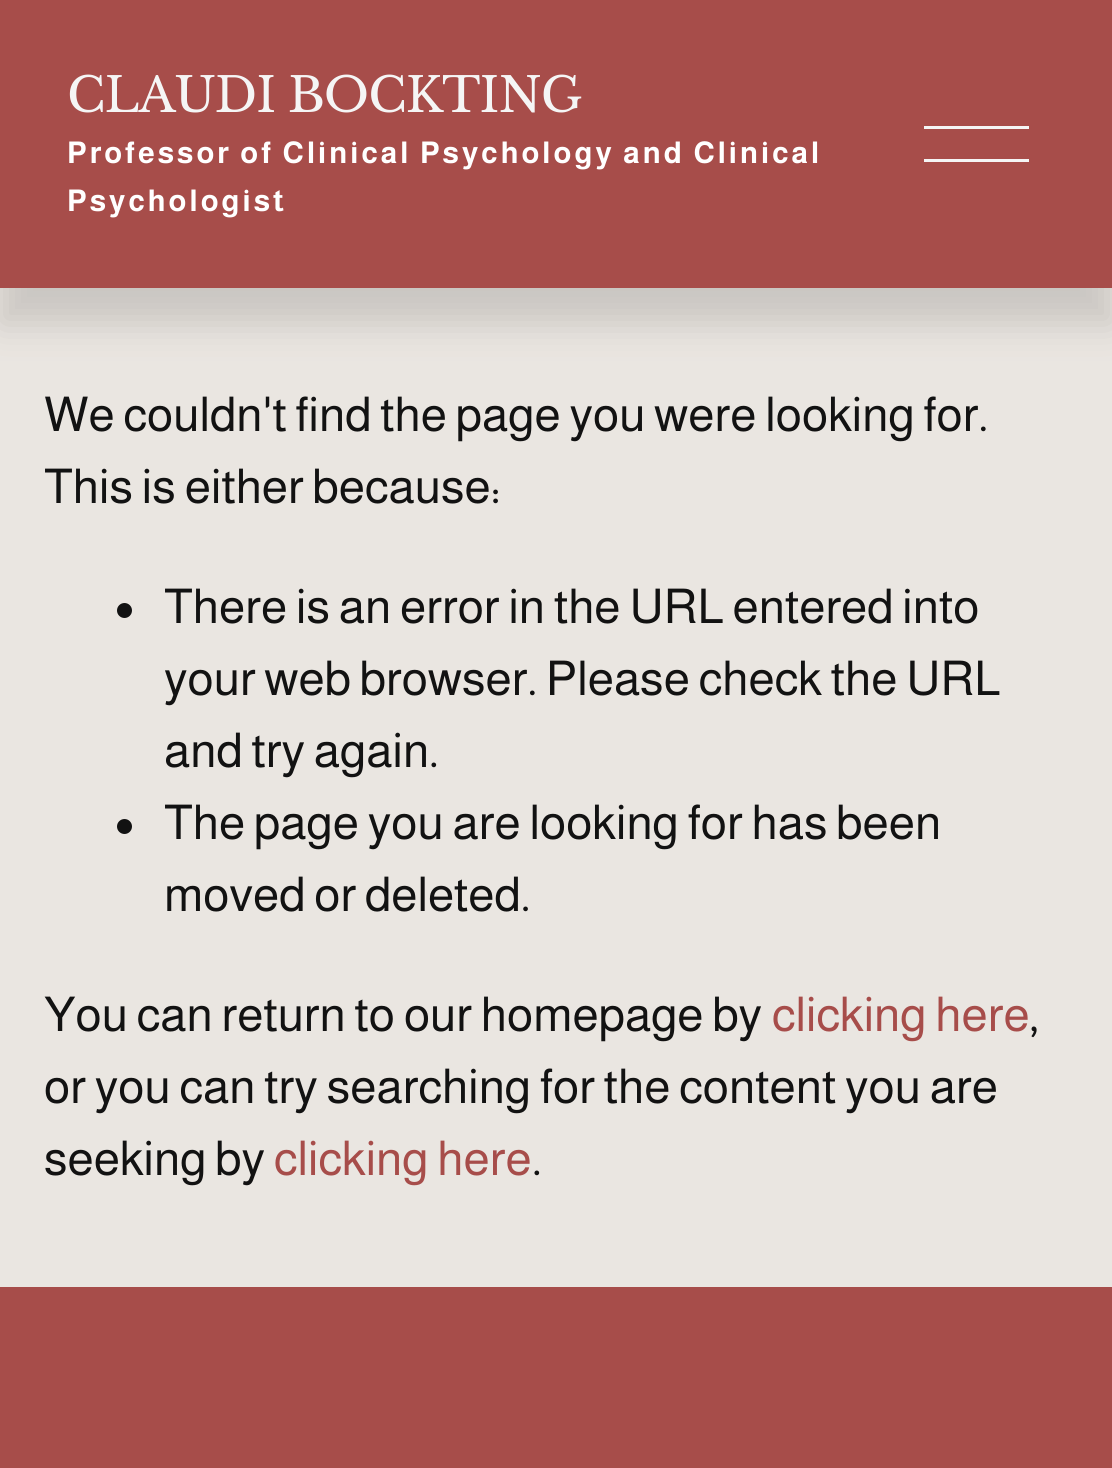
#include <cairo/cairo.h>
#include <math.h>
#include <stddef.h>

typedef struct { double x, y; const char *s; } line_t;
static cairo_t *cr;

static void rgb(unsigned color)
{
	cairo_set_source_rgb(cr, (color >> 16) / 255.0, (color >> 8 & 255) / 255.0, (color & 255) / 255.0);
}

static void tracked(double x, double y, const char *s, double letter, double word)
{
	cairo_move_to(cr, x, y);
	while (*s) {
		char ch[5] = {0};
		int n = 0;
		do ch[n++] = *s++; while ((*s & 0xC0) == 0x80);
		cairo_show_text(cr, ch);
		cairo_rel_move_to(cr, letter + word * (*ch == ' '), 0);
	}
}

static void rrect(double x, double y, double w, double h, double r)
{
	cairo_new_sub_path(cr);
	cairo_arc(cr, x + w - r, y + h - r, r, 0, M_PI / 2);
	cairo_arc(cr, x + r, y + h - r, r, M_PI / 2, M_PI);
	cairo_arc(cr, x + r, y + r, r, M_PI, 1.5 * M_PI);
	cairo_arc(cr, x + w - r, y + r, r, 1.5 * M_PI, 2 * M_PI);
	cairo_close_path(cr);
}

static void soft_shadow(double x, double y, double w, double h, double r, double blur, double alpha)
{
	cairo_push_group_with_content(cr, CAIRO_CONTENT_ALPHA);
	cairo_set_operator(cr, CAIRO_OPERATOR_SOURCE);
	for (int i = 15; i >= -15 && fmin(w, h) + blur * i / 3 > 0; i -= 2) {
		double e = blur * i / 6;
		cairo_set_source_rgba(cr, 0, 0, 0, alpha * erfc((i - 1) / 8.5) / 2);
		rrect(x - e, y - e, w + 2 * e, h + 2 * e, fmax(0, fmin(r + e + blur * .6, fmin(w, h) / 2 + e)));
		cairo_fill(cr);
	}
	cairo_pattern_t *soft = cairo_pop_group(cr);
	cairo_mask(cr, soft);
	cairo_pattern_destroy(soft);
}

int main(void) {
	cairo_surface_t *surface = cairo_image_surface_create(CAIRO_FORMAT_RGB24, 1112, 1468);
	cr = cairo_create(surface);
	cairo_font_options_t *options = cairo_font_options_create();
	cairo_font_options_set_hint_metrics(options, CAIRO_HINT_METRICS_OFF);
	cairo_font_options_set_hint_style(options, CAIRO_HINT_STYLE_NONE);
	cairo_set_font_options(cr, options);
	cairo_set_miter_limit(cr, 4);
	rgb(0xeae6e1);
	cairo_paint(cr);
	rgb(0xa74d4a);
	cairo_rectangle(cr, 0, 0, 1112, 288);
	cairo_fill(cr);
	cairo_save(cr);
	cairo_rectangle(cr, 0, 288, 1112, 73);
	cairo_clip(cr);
	rgb(0xcac6c2);
	soft_shadow(0, 36, 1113, 288, 0, 18, 1);
	cairo_restore(cr);
	rgb(0xf5f5f5);
	cairo_rectangle(cr, 924, 126, 105, 3);
	cairo_fill(cr);
	cairo_rectangle(cr, 924, 159, 105, 3);
	cairo_fill(cr);
	rgb(0x121212);
	cairo_arc(cr, 124.5, 610.5, 7.5, 0, 2 * M_PI);
	cairo_fill(cr);
	cairo_arc(cr, 124.5, 826.5, 7.5, 0, 2 * M_PI);
	cairo_fill(cr);
	rgb(0xa74d4a);
	cairo_rectangle(cr, 0, 1287, 1112, 181);
	cairo_fill(cr);
	cairo_select_font_face(cr, "Libre Baskerville", CAIRO_FONT_SLANT_NORMAL, CAIRO_FONT_WEIGHT_NORMAL);
	cairo_set_font_size(cr, 48);
	rgb(0xf5f5f5);
	tracked(67, 112, "CLAUDI BOCKTING", -1, 0);
	cairo_select_font_face(cr, "Almarai", CAIRO_FONT_SLANT_NORMAL, CAIRO_FONT_WEIGHT_BOLD);
	cairo_set_font_size(cr, 30);
	rgb(0xffffff);
	tracked(67, 163, "Professor of Clinical Psychology and Clinical", 3, 0);
	tracked(67, 211, "Psychologist", 3, 0);
	cairo_select_font_face(cr, "Almarai", CAIRO_FONT_SLANT_NORMAL, CAIRO_FONT_WEIGHT_NORMAL);
	cairo_set_font_size(cr, 48);
	rgb(0x121212);
	{
		static const line_t items[] = {
			{44, 431, "We couldn't find the page you were looking for."},
			{44, 503, "This is either because:"},
			{164, 623, "There is an error in the URL entered into"},
			{164, 695, "your web browser. Please check the URL"},
			{164, 767, "and try again."},
			{164, 839, "The page you are looking for has been"},
			{164, 911, "moved or deleted."},
			{44, 1031, "You can return to our homepage by"},
		};
		for (size_t i = 0; i < sizeof items / sizeof *items; i++) {
			cairo_move_to(cr, items[i].x, items[i].y);
			cairo_show_text(cr, items[i].s);
		}
	}
	rgb(0xa74d4a);
	cairo_move_to(cr, 772, 1031);
	cairo_show_text(cr, "clicking here");
	rgb(0x121212);
	{
		static const line_t items[] = {
			{1029, 1031, ","},
			{44, 1103, "or you can try searching for the content you are"},
			{44, 1175, "seeking by"},
		};
		for (size_t i = 0; i < sizeof items / sizeof *items; i++) {
			cairo_move_to(cr, items[i].x, items[i].y);
			cairo_show_text(cr, items[i].s);
		}
	}
	rgb(0xa74d4a);
	cairo_move_to(cr, 274, 1175);
	cairo_show_text(cr, "clicking here");
	rgb(0x121212);
	cairo_move_to(cr, 532, 1175);
	cairo_show_text(cr, ".");
	cairo_surface_write_to_png(surface, "page.png");
	cairo_font_options_destroy(options);
	cairo_destroy(cr);
	cairo_surface_destroy(surface);
	return 0;
}
